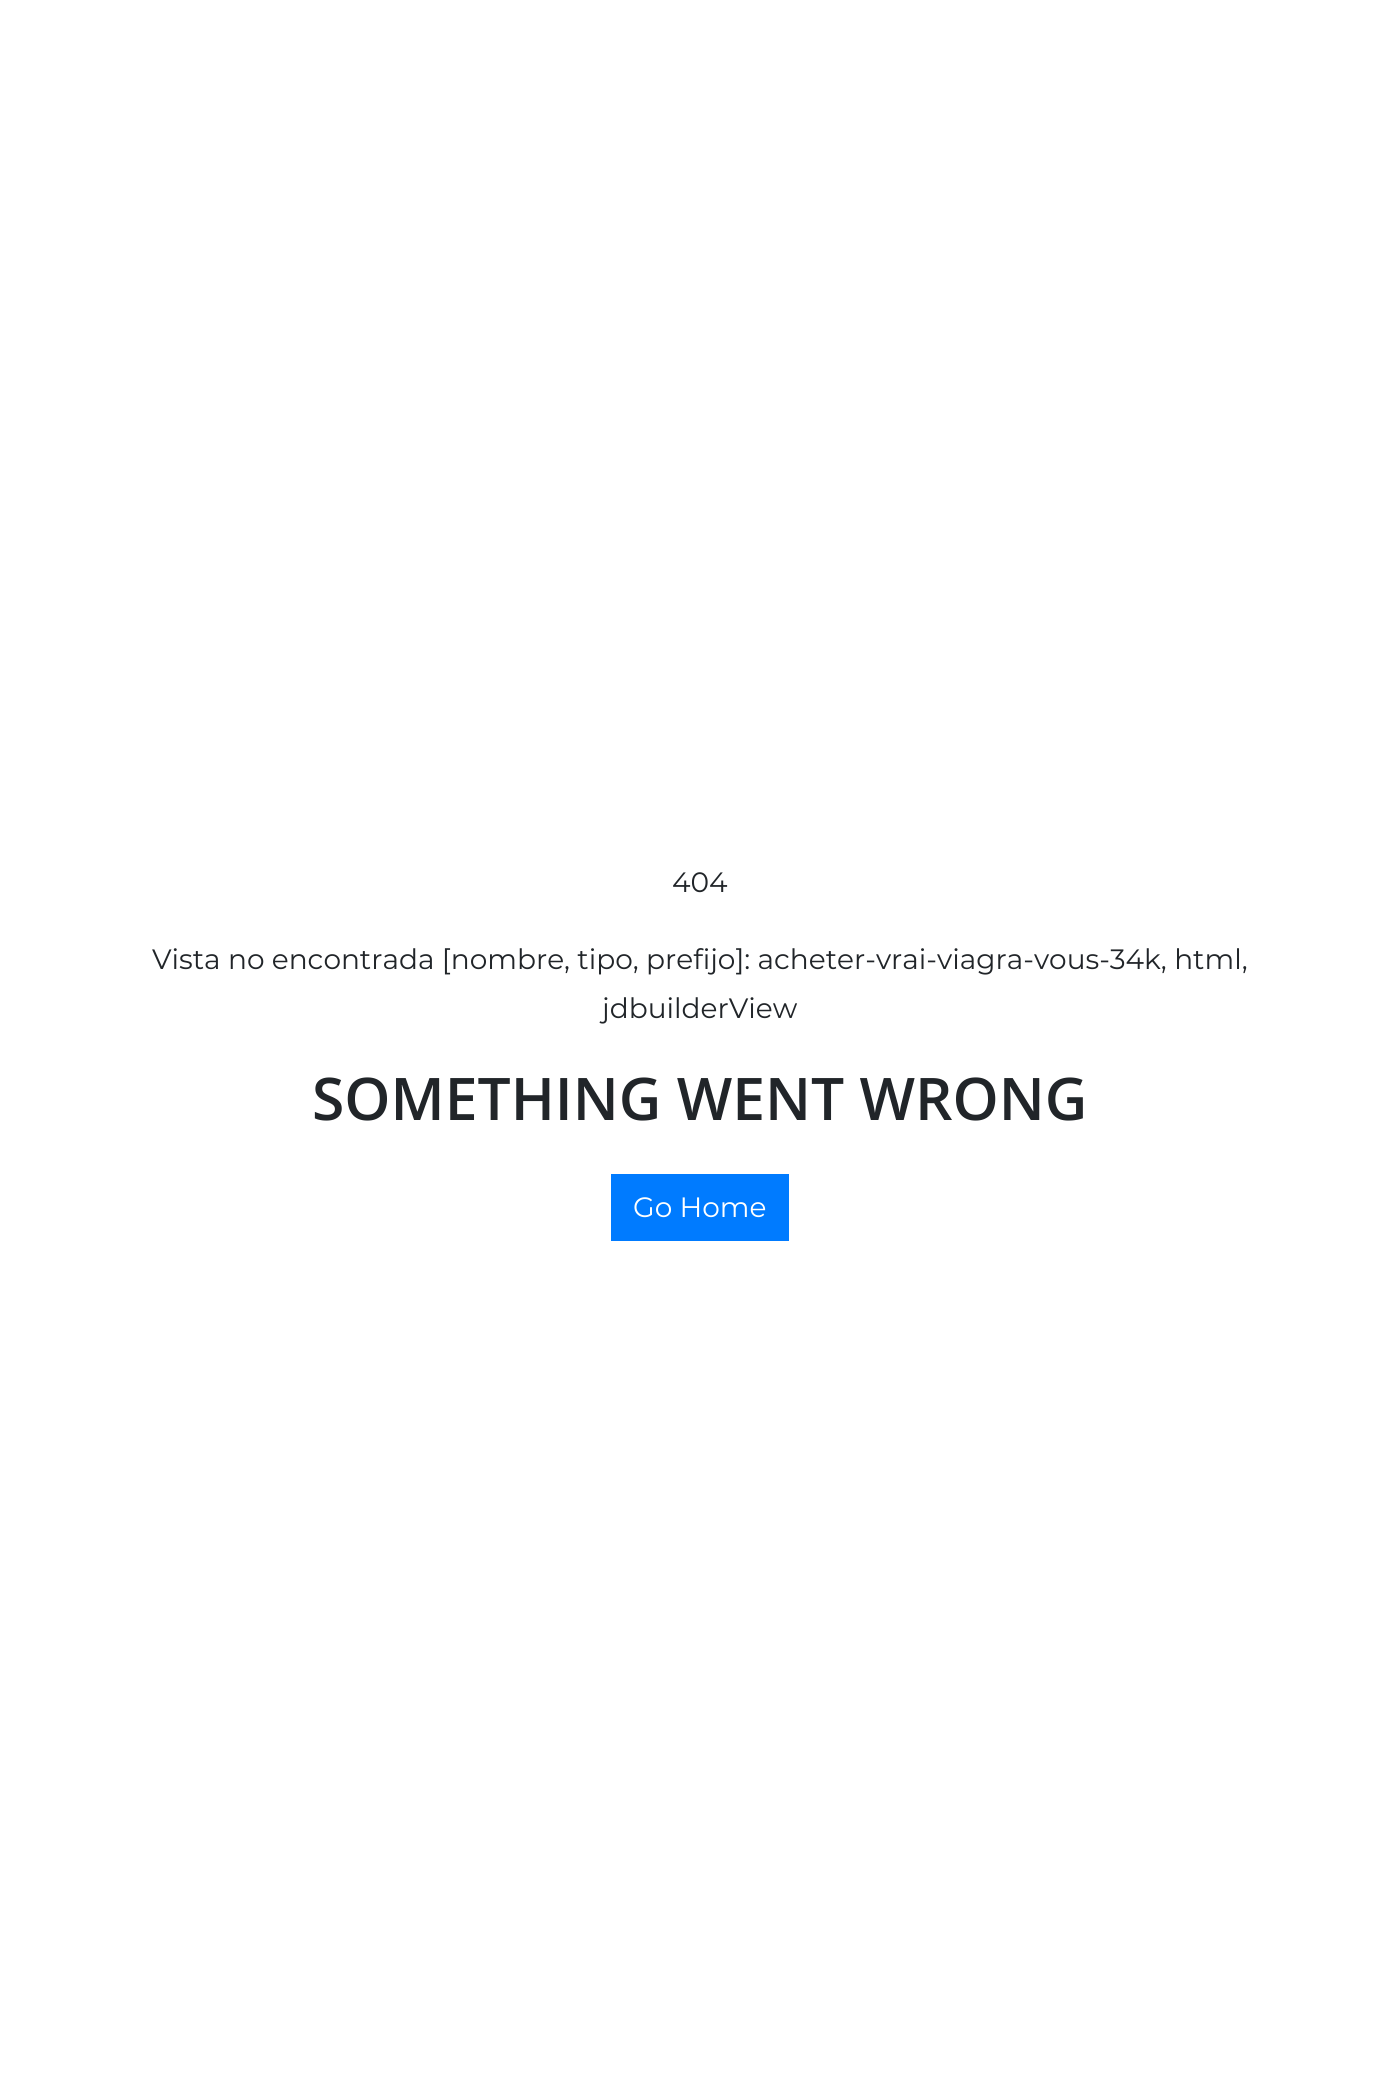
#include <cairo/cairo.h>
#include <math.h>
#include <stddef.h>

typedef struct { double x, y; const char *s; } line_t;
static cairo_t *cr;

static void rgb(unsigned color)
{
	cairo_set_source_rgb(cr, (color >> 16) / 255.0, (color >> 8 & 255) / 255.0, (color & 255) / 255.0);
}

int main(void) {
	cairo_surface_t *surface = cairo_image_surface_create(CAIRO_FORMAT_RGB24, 1400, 2099);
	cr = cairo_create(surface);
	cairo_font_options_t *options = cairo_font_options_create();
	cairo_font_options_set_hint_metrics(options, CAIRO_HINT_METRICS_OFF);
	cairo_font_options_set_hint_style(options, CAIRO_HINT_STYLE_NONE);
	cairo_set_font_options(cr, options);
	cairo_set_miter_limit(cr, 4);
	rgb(0xffffff);
	cairo_paint(cr);
	rgb(0x007bff);
	cairo_rectangle(cr, 611, 1174, 178, 67);
	cairo_fill(cr);
	cairo_select_font_face(cr, "Montserrat", CAIRO_FONT_SLANT_NORMAL, CAIRO_FONT_WEIGHT_NORMAL);
	cairo_set_font_size(cr, 28);
	rgb(0x212529);
	{
		static const line_t items[] = {
			{672, 892, "404"},
			{152, 969, "Vista no encontrada [nombre, tipo, prefijo]: acheter-vrai-viagra-vous-34k, html,"},
			{602, 1018, "jdbuilderView"},
		};
		for (size_t i = 0; i < sizeof items / sizeof *items; i++) {
			cairo_move_to(cr, items[i].x, items[i].y);
			cairo_show_text(cr, items[i].s);
		}
	}
	cairo_select_font_face(cr, "Open Sans SemiBold", CAIRO_FONT_SLANT_NORMAL, CAIRO_FONT_WEIGHT_NORMAL);
	cairo_set_font_size(cr, 58.75);
	cairo_move_to(cr, 312, 1120);
	cairo_show_text(cr, "SOMETHING WENT WRONG");
	cairo_select_font_face(cr, "Montserrat", CAIRO_FONT_SLANT_NORMAL, CAIRO_FONT_WEIGHT_NORMAL);
	cairo_set_font_size(cr, 28);
	rgb(0xffffff);
	cairo_move_to(cr, 633, 1217);
	cairo_show_text(cr, "Go Home");
	cairo_surface_write_to_png(surface, "page.png");
	cairo_font_options_destroy(options);
	cairo_destroy(cr);
	cairo_surface_destroy(surface);
	return 0;
}
